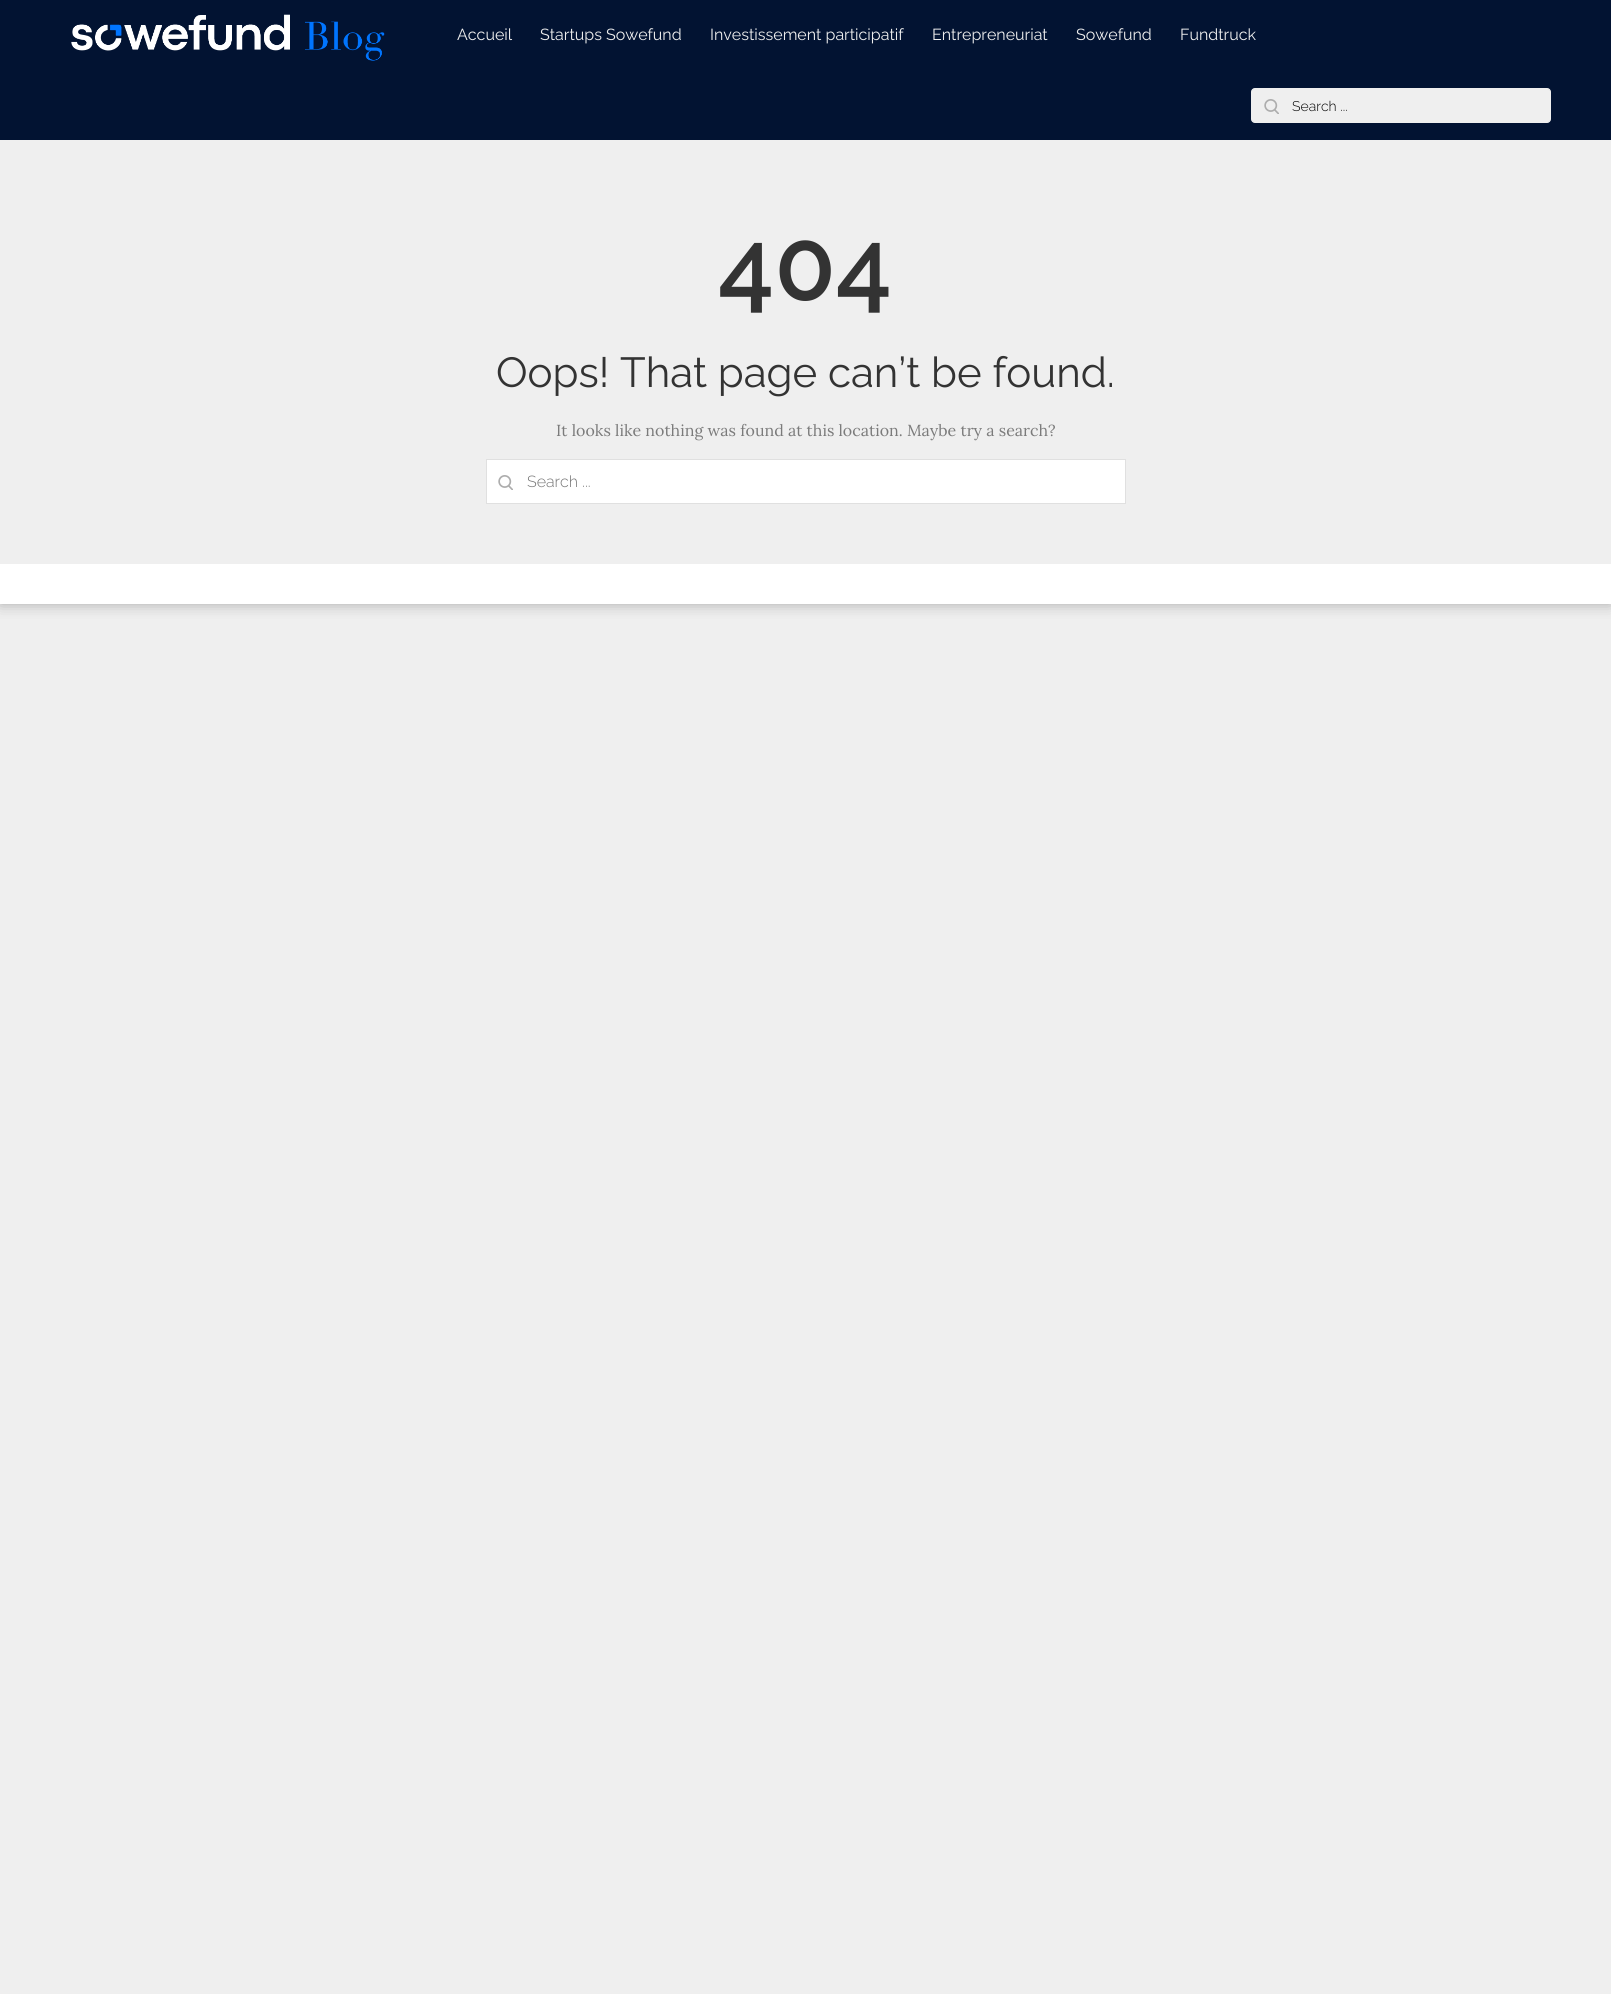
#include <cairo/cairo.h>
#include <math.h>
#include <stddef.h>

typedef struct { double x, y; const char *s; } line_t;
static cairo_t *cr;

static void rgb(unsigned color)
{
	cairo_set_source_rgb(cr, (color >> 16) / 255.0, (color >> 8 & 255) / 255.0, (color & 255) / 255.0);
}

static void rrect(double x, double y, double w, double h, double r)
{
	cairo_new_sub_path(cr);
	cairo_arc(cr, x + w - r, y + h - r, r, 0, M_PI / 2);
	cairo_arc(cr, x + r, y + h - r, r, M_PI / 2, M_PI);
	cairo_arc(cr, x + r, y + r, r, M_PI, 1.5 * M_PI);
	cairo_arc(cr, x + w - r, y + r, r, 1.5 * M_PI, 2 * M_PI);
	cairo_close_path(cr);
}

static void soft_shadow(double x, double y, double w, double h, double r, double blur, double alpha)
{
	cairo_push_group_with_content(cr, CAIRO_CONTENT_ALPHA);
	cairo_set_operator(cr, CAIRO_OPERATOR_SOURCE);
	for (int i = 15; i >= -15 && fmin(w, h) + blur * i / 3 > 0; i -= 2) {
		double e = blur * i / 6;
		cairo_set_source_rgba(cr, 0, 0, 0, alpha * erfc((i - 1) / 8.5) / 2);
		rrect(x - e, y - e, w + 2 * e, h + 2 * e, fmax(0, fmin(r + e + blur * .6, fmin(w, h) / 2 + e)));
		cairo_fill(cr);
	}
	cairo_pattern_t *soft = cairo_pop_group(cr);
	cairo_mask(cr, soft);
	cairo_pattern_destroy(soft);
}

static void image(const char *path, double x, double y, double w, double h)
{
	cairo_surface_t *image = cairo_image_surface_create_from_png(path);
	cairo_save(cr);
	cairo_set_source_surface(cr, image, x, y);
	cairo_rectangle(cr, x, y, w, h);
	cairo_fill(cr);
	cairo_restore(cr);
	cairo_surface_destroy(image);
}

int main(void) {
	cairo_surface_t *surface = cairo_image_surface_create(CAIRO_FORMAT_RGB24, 1611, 1994);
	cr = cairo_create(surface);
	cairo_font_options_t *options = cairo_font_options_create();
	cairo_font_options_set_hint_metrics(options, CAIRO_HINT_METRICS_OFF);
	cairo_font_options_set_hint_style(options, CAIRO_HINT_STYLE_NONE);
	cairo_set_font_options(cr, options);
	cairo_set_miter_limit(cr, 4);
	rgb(0xefefef);
	cairo_paint(cr);
	cairo_save(cr);
	cairo_rectangle(cr, 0, 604, 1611, 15);
	cairo_clip(cr);
	rgb(0xaaaaaa);
	soft_shadow(0, 0, 1611, 604, 0, 7.5, 1);
	cairo_restore(cr);
	rgb(0x021332);
	cairo_rectangle(cr, 0, 0, 1611, 140);
	cairo_fill(cr);
	image("img/1.png", 71, 14, 314, 47);
	rgb(0xefefef);
	rrect(1251.5, 88.5, 299, 34, 3.5);
	cairo_fill_preserve(cr);
	cairo_set_line_width(cr, 1);
	cairo_stroke(cr);
	image("img/2.png", 1264, 99, 15, 15);
	rgb(0xffffff);
	cairo_rectangle(cr, 486.5, 459.5, 639, 44);
	cairo_fill_preserve(cr);
	rgb(0xe0e0e0);
	cairo_stroke(cr);
	image("img/3.png", 498, 475, 15, 15);
	rgb(0xffffff);
	cairo_rectangle(cr, 0, 564, 1611, 40);
	cairo_fill(cr);
	cairo_select_font_face(cr, "Raleway", CAIRO_FONT_SLANT_NORMAL, CAIRO_FONT_WEIGHT_NORMAL);
	cairo_set_font_size(cr, 16);
	rgb(0xeeeeee);
	{
		static const line_t items[] = {
			{457, 40, "Accueil"},
			{540, 40, "Startups Sowefund"},
			{710, 40, "Investissement participatif"},
			{932, 40, "Entrepreneuriat"},
			{1076, 40, "Sowefund"},
			{1180, 40, "Fundtruck"},
		};
		for (size_t i = 0; i < sizeof items / sizeof *items; i++) {
			cairo_move_to(cr, items[i].x, items[i].y);
			cairo_show_text(cr, items[i].s);
		}
	}
	cairo_select_font_face(cr, "Raleway Light", CAIRO_FONT_SLANT_NORMAL, CAIRO_FONT_WEIGHT_NORMAL);
	cairo_set_font_size(cr, 14);
	rgb(0x000000);
	cairo_move_to(cr, 1292, 111);
	cairo_show_text(cr, "Search ...");
	cairo_select_font_face(cr, "Raleway SemiBold", CAIRO_FONT_SLANT_NORMAL, CAIRO_FONT_WEIGHT_NORMAL);
	cairo_set_font_size(cr, 100);
	rgb(0x333333);
	cairo_move_to(cr, 718, 300);
	cairo_show_text(cr, "404");
	cairo_select_font_face(cr, "Raleway", CAIRO_FONT_SLANT_NORMAL, CAIRO_FONT_WEIGHT_NORMAL);
	cairo_set_font_size(cr, 42);
	cairo_move_to(cr, 496, 387);
	cairo_show_text(cr, "Oops! That page can’t be found.");
	cairo_select_font_face(cr, "Lora", CAIRO_FONT_SLANT_NORMAL, CAIRO_FONT_WEIGHT_NORMAL);
	cairo_set_font_size(cr, 16);
	rgb(0x7b7b7b);
	cairo_move_to(cr, 556, 436);
	cairo_show_text(cr, "It looks like nothing was found at this location. Maybe try a search?");
	cairo_select_font_face(cr, "Raleway Light", CAIRO_FONT_SLANT_NORMAL, CAIRO_FONT_WEIGHT_NORMAL);
	rgb(0x757575);
	cairo_move_to(cr, 527, 487);
	cairo_show_text(cr, "Search ...");
	cairo_surface_write_to_png(surface, "page.png");
	cairo_font_options_destroy(options);
	cairo_destroy(cr);
	cairo_surface_destroy(surface);
	return 0;
}
